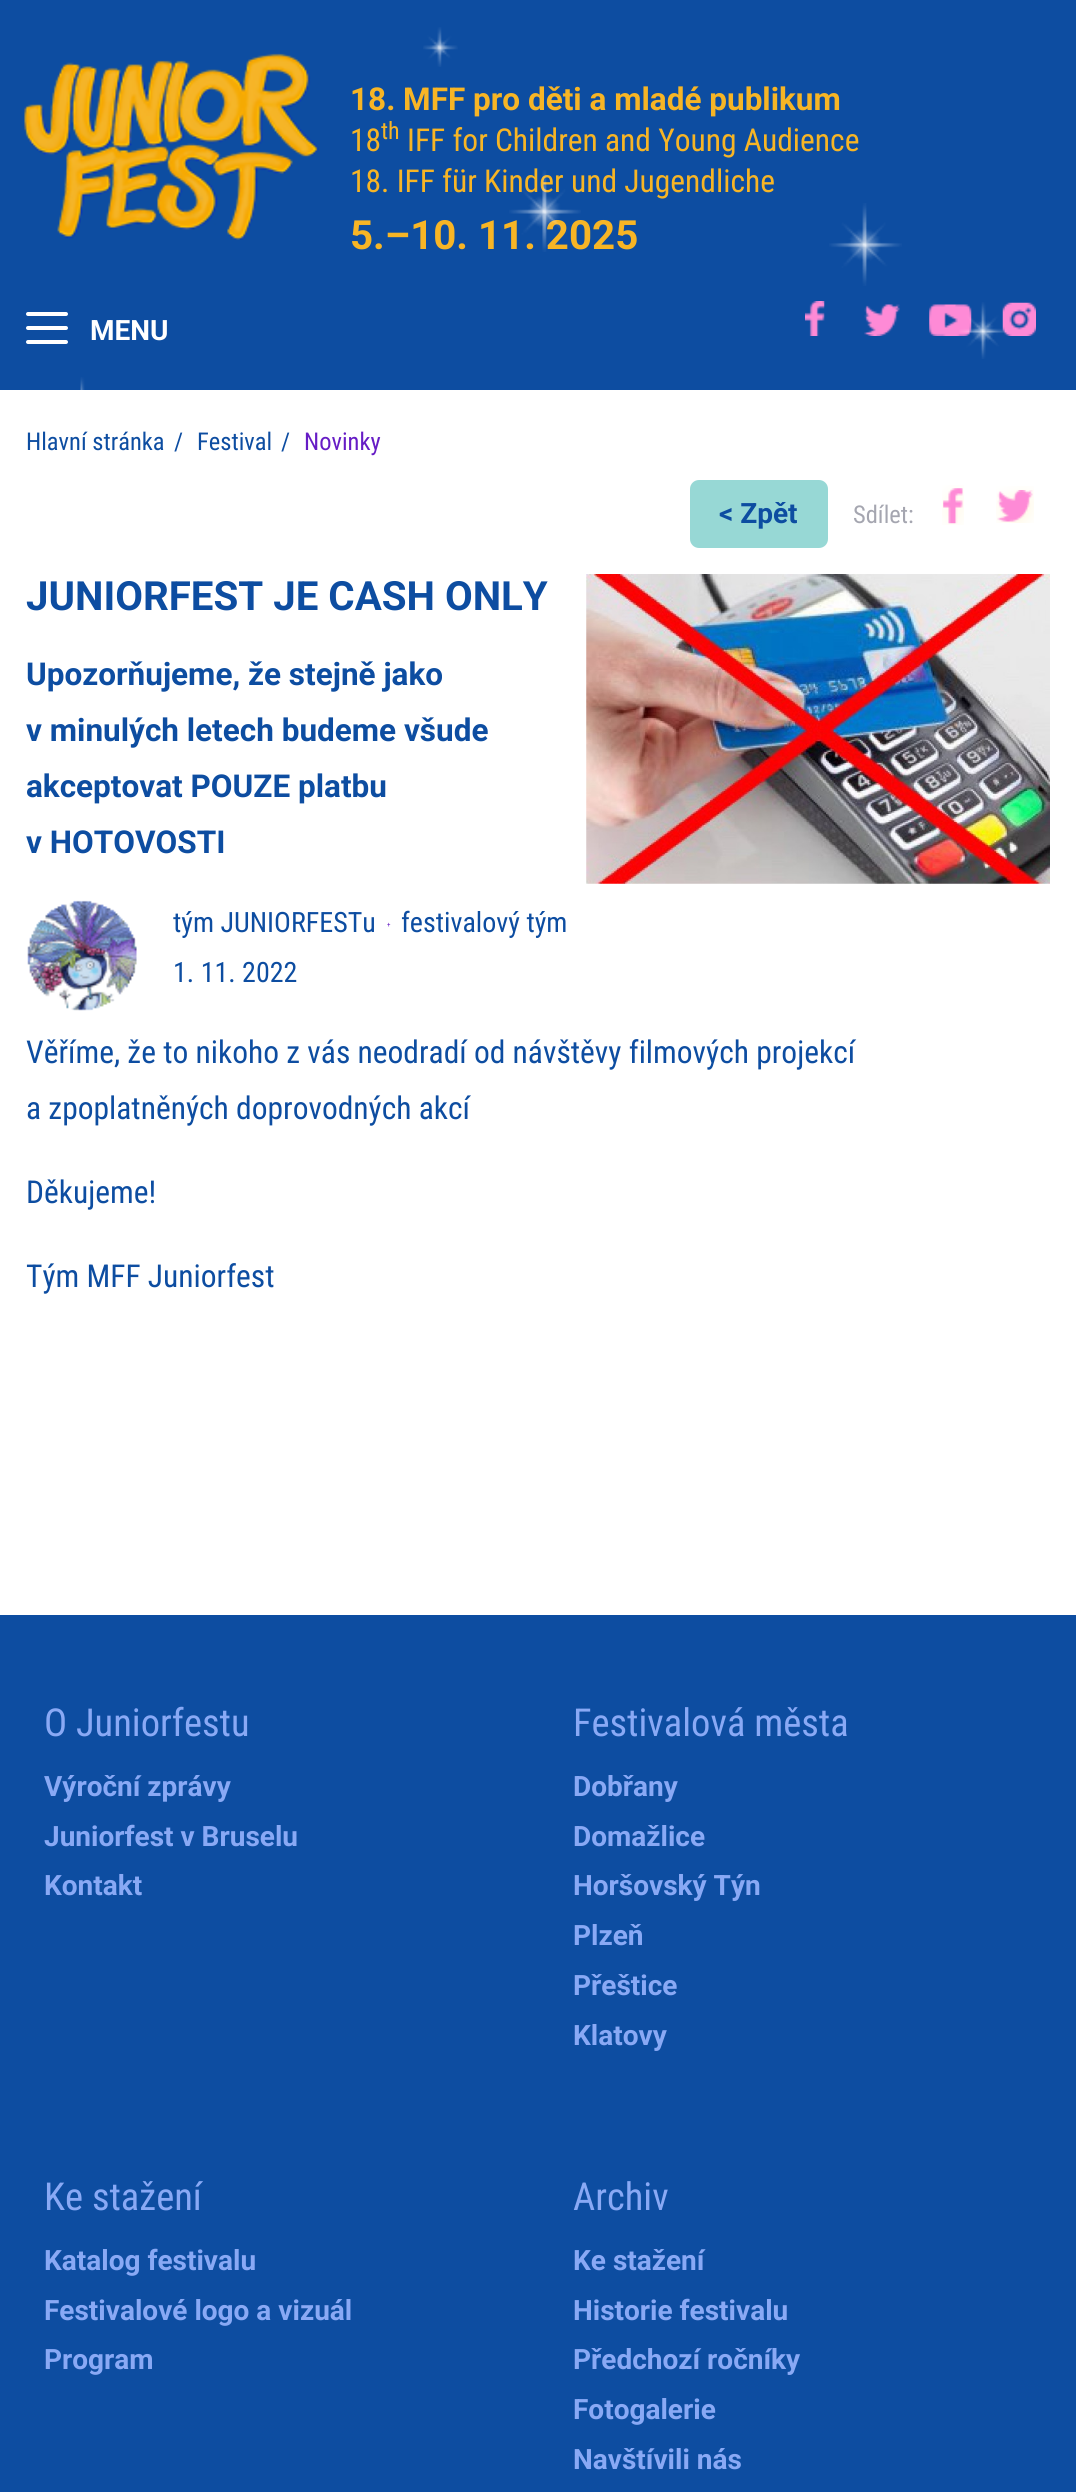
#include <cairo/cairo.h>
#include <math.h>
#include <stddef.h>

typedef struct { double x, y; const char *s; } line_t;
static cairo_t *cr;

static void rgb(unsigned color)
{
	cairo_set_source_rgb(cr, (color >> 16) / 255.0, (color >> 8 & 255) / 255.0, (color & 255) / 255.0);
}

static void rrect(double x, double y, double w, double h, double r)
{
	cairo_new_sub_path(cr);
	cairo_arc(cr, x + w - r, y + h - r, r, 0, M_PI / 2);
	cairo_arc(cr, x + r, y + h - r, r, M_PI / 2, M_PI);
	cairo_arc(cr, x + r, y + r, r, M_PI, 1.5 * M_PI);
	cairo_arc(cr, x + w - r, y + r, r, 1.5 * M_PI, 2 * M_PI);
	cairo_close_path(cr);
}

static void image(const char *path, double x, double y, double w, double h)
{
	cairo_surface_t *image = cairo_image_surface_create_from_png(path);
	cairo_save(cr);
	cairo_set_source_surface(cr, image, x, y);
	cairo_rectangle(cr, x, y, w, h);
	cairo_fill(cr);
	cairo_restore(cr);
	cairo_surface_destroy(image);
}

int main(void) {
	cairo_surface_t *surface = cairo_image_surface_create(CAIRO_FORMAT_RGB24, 1076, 2492);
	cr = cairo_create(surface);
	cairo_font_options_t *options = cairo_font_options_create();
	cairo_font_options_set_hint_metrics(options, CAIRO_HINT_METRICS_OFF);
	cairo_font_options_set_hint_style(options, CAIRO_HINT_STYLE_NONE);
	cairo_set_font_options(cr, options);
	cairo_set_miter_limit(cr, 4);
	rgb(0xffffff);
	cairo_paint(cr);
	rgb(0x0d4da1);
	cairo_rectangle(cr, 0, 0, 1076, 390);
	cairo_fill(cr);
	image("img/1.png", 423, 27, 35, 40);
	image("img/2.png", 24, 53, 295, 187);
	image("img/3.png", 805, 301, 20, 35);
	image("img/4.png", 864, 304, 36, 32);
	image("img/5.png", 929, 304, 43, 32);
	image("img/6.png", 1002, 302, 34, 34);
	image("img/8.png", 829, 203, 73, 83);
	image("img/9.png", 959, 302, 49, 57);
	image("img/10.png", 80, 377, 5, 13);
	rgb(0xffffff);
	rrect(26, 312, 42, 4, 2);
	cairo_fill(cr);
	rrect(26, 326, 42, 4, 2);
	cairo_fill(cr);
	rrect(26, 340, 42, 4, 2);
	cairo_fill(cr);
	rgb(0x97d8d5);
	rrect(690, 480, 138, 68, 9);
	cairo_fill(cr);
	image("img/11.png", 942, 485, 22, 40);
	image("img/12.png", 996, 486, 38, 37);
	image("img/13.png", 27, 900, 110, 111);
	image("img/14.png", 586, 574, 464, 310);
	rgb(0x0d4da1);
	cairo_rectangle(cr, 0, 1615, 1076, 877);
	cairo_fill(cr);
	cairo_select_font_face(cr, "Roboto", CAIRO_FONT_SLANT_NORMAL, CAIRO_FONT_WEIGHT_BOLD);
	cairo_set_font_size(cr, 31.5);
	rgb(0xf7b525);
	cairo_move_to(cr, 350, 110);
	cairo_show_text(cr, "18. MFF pro děti a mladé publikum");
	cairo_select_font_face(cr, "Roboto Condensed", CAIRO_FONT_SLANT_NORMAL, CAIRO_FONT_WEIGHT_NORMAL);
	cairo_move_to(cr, 350, 151);
	cairo_show_text(cr, "18");
	cairo_set_font_size(cr, 24);
	cairo_move_to(cr, 381, 139);
	cairo_show_text(cr, "th");
	cairo_set_font_size(cr, 31.5);
	cairo_move_to(cr, 407, 151);
	cairo_show_text(cr, "IFF for Children and Young Audience");
	cairo_move_to(cr, 350, 192);
	cairo_show_text(cr, "18. IFF für Kinder und Jugendliche");
	cairo_select_font_face(cr, "Roboto", CAIRO_FONT_SLANT_NORMAL, CAIRO_FONT_WEIGHT_BOLD);
	cairo_set_font_size(cr, 40.25);
	cairo_move_to(cr, 350, 249);
	cairo_show_text(cr, "5.–10. 11. 2025");
	image("img/7.png", 509, 170, 72, 82);
	cairo_set_font_size(cr, 28);
	rgb(0xffffff);
	cairo_move_to(cr, 90, 340);
	cairo_show_text(cr, "MENU");
	cairo_select_font_face(cr, "Roboto Condensed", CAIRO_FONT_SLANT_NORMAL, CAIRO_FONT_WEIGHT_NORMAL);
	cairo_set_font_size(cr, 24.5);
	rgb(0x0d4da1);
	{
		static const line_t items[] = {
			{26, 450, "Hlavní stránka"},
			{174, 450, "/"},
			{197, 450, "Festival"},
			{281, 450, "/"},
		};
		for (size_t i = 0; i < sizeof items / sizeof *items; i++) {
			cairo_move_to(cr, items[i].x, items[i].y);
			cairo_show_text(cr, items[i].s);
		}
	}
	rgb(0x661cc5);
	cairo_move_to(cr, 304, 450);
	cairo_show_text(cr, "Novinky");
	rgb(0x6921c6);
	cairo_rectangle(cr, 316, 449, 1, 1);
	cairo_fill(cr);
	cairo_select_font_face(cr, "Roboto", CAIRO_FONT_SLANT_NORMAL, CAIRO_FONT_WEIGHT_BOLD);
	cairo_set_font_size(cr, 28);
	rgb(0x0d4da1);
	cairo_move_to(cr, 719, 523);
	cairo_show_text(cr, "< Zpět");
	cairo_select_font_face(cr, "Roboto Condensed", CAIRO_FONT_SLANT_NORMAL, CAIRO_FONT_WEIGHT_NORMAL);
	cairo_set_font_size(cr, 24.5);
	rgb(0xa5a6b0);
	cairo_move_to(cr, 853, 523);
	cairo_show_text(cr, "Sdílet:");
	cairo_select_font_face(cr, "Roboto", CAIRO_FONT_SLANT_NORMAL, CAIRO_FONT_WEIGHT_BOLD);
	cairo_set_font_size(cr, 40.25);
	rgb(0x0d4da1);
	cairo_move_to(cr, 26, 610);
	cairo_show_text(cr, "JUNIORFEST JE CASH ONLY");
	cairo_set_font_size(cr, 31.5);
	{
		static const line_t items[] = {
			{26, 685, "Upozorňujeme, že stejně jako"},
			{26, 741, "v minulých letech budeme všude"},
			{26, 797, "akceptovat POUZE platbu"},
			{26, 853, "v HOTOVOSTI"},
		};
		for (size_t i = 0; i < sizeof items / sizeof *items; i++) {
			cairo_move_to(cr, items[i].x, items[i].y);
			cairo_show_text(cr, items[i].s);
		}
	}
	cairo_select_font_face(cr, "Roboto Condensed", CAIRO_FONT_SLANT_NORMAL, CAIRO_FONT_WEIGHT_NORMAL);
	cairo_set_font_size(cr, 28);
	cairo_move_to(cr, 173, 932);
	cairo_show_text(cr, "tým JUNIORFESTu");
	cairo_set_font_size(cr, 7);
	rgb(0x661cc5);
	cairo_move_to(cr, 387, 927);
	cairo_show_text(cr, "+");
	cairo_set_font_size(cr, 28);
	rgb(0x0d4da1);
	cairo_move_to(cr, 401, 932);
	cairo_show_text(cr, "festivalový tým");
	cairo_move_to(cr, 173, 982);
	cairo_show_text(cr, "1. 11. 2022");
	cairo_set_font_size(cr, 31.5);
	{
		static const line_t items[] = {
			{26, 1063, "Věříme, že to nikoho z vás neodradí od návštěvy filmových projekcí"},
			{26, 1119, "a zpoplatněných doprovodných akcí"},
			{26, 1203, "Děkujeme!"},
			{26, 1287, "Tým MFF Juniorfest"},
		};
		for (size_t i = 0; i < sizeof items / sizeof *items; i++) {
			cairo_move_to(cr, items[i].x, items[i].y);
			cairo_show_text(cr, items[i].s);
		}
	}
	cairo_set_font_size(cr, 38.5);
	rgb(0x89a9f5);
	cairo_move_to(cr, 44, 1736);
	cairo_show_text(cr, "O Juniorfestu");
	cairo_select_font_face(cr, "Roboto", CAIRO_FONT_SLANT_NORMAL, CAIRO_FONT_WEIGHT_BOLD);
	cairo_set_font_size(cr, 28);
	{
		static const line_t items[] = {
			{44, 1796, "Výroční zprávy"},
			{44, 1846, "Juniorfest v Bruselu"},
			{44, 1895, "Kontakt"},
		};
		for (size_t i = 0; i < sizeof items / sizeof *items; i++) {
			cairo_move_to(cr, items[i].x, items[i].y);
			cairo_show_text(cr, items[i].s);
		}
	}
	cairo_select_font_face(cr, "Roboto Condensed", CAIRO_FONT_SLANT_NORMAL, CAIRO_FONT_WEIGHT_NORMAL);
	cairo_set_font_size(cr, 38.5);
	cairo_move_to(cr, 573, 1736);
	cairo_show_text(cr, "Festivalová města");
	cairo_select_font_face(cr, "Roboto", CAIRO_FONT_SLANT_NORMAL, CAIRO_FONT_WEIGHT_BOLD);
	cairo_set_font_size(cr, 28);
	{
		static const line_t items[] = {
			{573, 1796, "Dobřany"},
			{573, 1846, "Domažlice"},
			{573, 1895, "Horšovský Týn"},
			{573, 1945, "Plzeň"},
			{573, 1995, "Přeštice"},
			{573, 2045, "Klatovy"},
		};
		for (size_t i = 0; i < sizeof items / sizeof *items; i++) {
			cairo_move_to(cr, items[i].x, items[i].y);
			cairo_show_text(cr, items[i].s);
		}
	}
	cairo_select_font_face(cr, "Roboto Condensed", CAIRO_FONT_SLANT_NORMAL, CAIRO_FONT_WEIGHT_NORMAL);
	cairo_set_font_size(cr, 38.5);
	cairo_move_to(cr, 44, 2210);
	cairo_show_text(cr, "Ke stažení");
	cairo_select_font_face(cr, "Roboto", CAIRO_FONT_SLANT_NORMAL, CAIRO_FONT_WEIGHT_BOLD);
	cairo_set_font_size(cr, 28);
	{
		static const line_t items[] = {
			{44, 2270, "Katalog festivalu"},
			{44, 2320, "Festivalové logo a vizuál"},
			{44, 2369, "Program"},
		};
		for (size_t i = 0; i < sizeof items / sizeof *items; i++) {
			cairo_move_to(cr, items[i].x, items[i].y);
			cairo_show_text(cr, items[i].s);
		}
	}
	cairo_select_font_face(cr, "Roboto Condensed", CAIRO_FONT_SLANT_NORMAL, CAIRO_FONT_WEIGHT_NORMAL);
	cairo_set_font_size(cr, 38.5);
	cairo_move_to(cr, 573, 2210);
	cairo_show_text(cr, "Archiv");
	cairo_select_font_face(cr, "Roboto", CAIRO_FONT_SLANT_NORMAL, CAIRO_FONT_WEIGHT_BOLD);
	cairo_set_font_size(cr, 28);
	{
		static const line_t items[] = {
			{573, 2270, "Ke stažení"},
			{573, 2320, "Historie festivalu"},
			{573, 2369, "Předchozí ročníky"},
			{573, 2419, "Fotogalerie"},
			{573, 2469, "Navštívili nás"},
		};
		for (size_t i = 0; i < sizeof items / sizeof *items; i++) {
			cairo_move_to(cr, items[i].x, items[i].y);
			cairo_show_text(cr, items[i].s);
		}
	}
	cairo_surface_write_to_png(surface, "page.png");
	cairo_font_options_destroy(options);
	cairo_destroy(cr);
	cairo_surface_destroy(surface);
	return 0;
}
